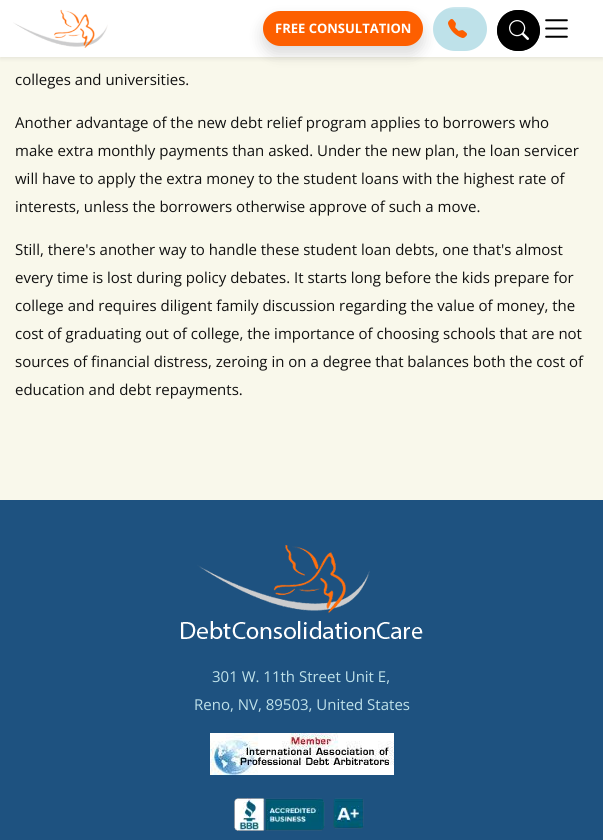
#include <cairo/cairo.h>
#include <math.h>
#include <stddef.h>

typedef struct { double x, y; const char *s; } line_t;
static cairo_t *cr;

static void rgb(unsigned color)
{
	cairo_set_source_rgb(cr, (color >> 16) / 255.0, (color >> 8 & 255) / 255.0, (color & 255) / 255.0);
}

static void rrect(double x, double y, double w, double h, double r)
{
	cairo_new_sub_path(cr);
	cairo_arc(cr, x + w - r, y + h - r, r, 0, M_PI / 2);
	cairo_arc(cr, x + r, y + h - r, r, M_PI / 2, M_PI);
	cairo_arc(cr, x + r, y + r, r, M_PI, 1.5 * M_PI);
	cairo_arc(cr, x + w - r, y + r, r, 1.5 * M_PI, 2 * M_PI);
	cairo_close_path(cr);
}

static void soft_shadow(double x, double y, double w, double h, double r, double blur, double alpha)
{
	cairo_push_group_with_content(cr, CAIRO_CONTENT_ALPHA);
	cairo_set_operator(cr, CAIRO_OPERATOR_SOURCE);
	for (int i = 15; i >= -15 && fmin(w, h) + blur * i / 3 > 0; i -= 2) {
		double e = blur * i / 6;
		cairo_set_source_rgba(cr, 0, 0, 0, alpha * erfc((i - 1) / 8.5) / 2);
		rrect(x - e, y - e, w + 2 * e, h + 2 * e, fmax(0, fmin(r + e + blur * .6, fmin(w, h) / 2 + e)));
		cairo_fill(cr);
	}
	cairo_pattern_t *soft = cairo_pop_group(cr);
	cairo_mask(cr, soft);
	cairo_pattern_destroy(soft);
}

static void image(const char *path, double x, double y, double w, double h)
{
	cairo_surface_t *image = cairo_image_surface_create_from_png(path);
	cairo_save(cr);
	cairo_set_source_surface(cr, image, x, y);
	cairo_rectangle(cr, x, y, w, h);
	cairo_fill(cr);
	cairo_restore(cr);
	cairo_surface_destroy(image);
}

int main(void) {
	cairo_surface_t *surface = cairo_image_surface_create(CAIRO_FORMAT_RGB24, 603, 840);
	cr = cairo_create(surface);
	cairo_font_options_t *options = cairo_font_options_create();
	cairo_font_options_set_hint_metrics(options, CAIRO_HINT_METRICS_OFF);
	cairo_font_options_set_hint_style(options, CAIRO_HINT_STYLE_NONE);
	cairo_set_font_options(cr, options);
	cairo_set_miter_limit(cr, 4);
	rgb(0xf9f8eb);
	cairo_paint(cr);
	rgb(0x000000);
	soft_shadow(0, 2, 603, 57, 0, 2, 0.07);
	rgb(0xffffff);
	cairo_rectangle(cr, 0, 0, 603, 57);
	cairo_fill(cr);
	image("img/1.png", 13, 9, 95, 39);
	rgb(0x000000);
	soft_shadow(263, 19, 160, 35, 17.5, 7.5, 0.15);
	rgb(0xfd5f00);
	rrect(263, 11, 160, 35, 17.5);
	cairo_fill(cr);
	rgb(0xbee1e9);
	rrect(433, 7, 54, 44, 22);
	cairo_fill(cr);
	image("img/2.png", 448, 19, 19, 19);
	rgb(0x000000);
	cairo_new_path(cr);
	cairo_move_to(cr, 518.5, 10);
	cairo_curve_to(cr, 530.5, 10, 540, 19, 540, 30.5);
	cairo_curve_to(cr, 540, 42, 530.5, 51, 518.5, 51);
	cairo_curve_to(cr, 506.5, 51, 497, 42, 497, 30.5);
	cairo_curve_to(cr, 497, 19, 506.5, 10, 518.5, 10);
	cairo_close_path(cr);
	cairo_fill(cr);
	cairo_new_path(cr);
	cairo_move_to(cr, 518.5, 11);
	cairo_curve_to(cr, 545.5, 11, 545.5, 50, 518.5, 50);
	cairo_curve_to(cr, 491.5, 50, 491.5, 11, 518.5, 11);
	cairo_close_path(cr);
	cairo_stroke(cr);
	image("img/3.png", 509, 20, 20, 20);
	image("img/4.png", 545, 19, 23, 19);
	image("img/5.png", 447, 7, 26, 2);
	rgb(0x1e5280);
	cairo_rectangle(cr, 0, 500, 603, 340);
	cairo_fill(cr);
	image("img/6.png", 181, 545, 242, 94);
	image("img/7.png", 210, 733, 184, 42);
	image("img/8.png", 234, 798, 130, 33);
	cairo_select_font_face(cr, "Open Sans", CAIRO_FONT_SLANT_NORMAL, CAIRO_FONT_WEIGHT_BOLD);
	cairo_set_font_size(cr, 13);
	rgb(0xffffff);
	cairo_move_to(cr, 275, 33);
	cairo_show_text(cr, "FREE CONSULTATION");
	cairo_select_font_face(cr, "Open Sans", CAIRO_FONT_SLANT_NORMAL, CAIRO_FONT_WEIGHT_NORMAL);
	cairo_set_font_size(cr, 15);
	rgb(0x111111);
	{
		static const line_t items[] = {
			{15, 85, "colleges and universities."},
			{15, 128, "Another advantage of the new debt relief program applies to borrowers who"},
			{15, 156, "make extra monthly payments than asked. Under the new plan, the loan servicer"},
			{15, 184, "will have to apply the extra money to the student loans with the highest rate of"},
			{15, 212, "interests, unless the borrowers otherwise approve of such a move."},
			{15, 255, "Still, there's another way to handle these student loan debts, one that's almost"},
			{15, 283, "every time is lost during policy debates. It starts long before the kids prepare for"},
			{15, 311, "college and requires diligent family discussion regarding the value of money, the"},
			{15, 339, "cost of graduating out of college, the importance of choosing schools that are not"},
			{15, 367, "sources of financial distress, zeroing in on a degree that balances both the cost of"},
			{15, 395, "education and debt repayments."},
		};
		for (size_t i = 0; i < sizeof items / sizeof *items; i++) {
			cairo_move_to(cr, items[i].x, items[i].y);
			cairo_show_text(cr, items[i].s);
		}
	}
	rgb(0xbee1e9);
	cairo_move_to(cr, 212, 682);
	cairo_show_text(cr, "301 W. 11th Street Unit E,");
	cairo_move_to(cr, 194, 710);
	cairo_show_text(cr, "Reno, NV, 89503, United States");
	cairo_surface_write_to_png(surface, "page.png");
	cairo_font_options_destroy(options);
	cairo_destroy(cr);
	cairo_surface_destroy(surface);
	return 0;
}
